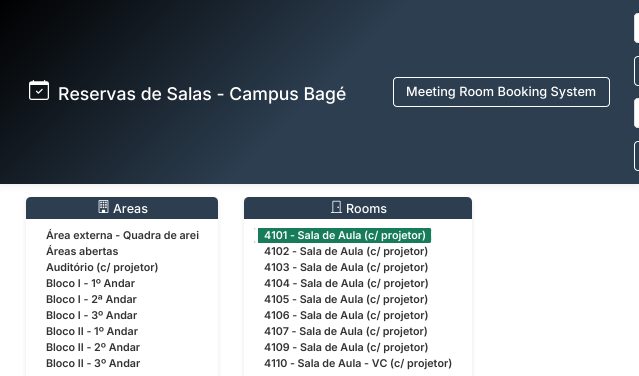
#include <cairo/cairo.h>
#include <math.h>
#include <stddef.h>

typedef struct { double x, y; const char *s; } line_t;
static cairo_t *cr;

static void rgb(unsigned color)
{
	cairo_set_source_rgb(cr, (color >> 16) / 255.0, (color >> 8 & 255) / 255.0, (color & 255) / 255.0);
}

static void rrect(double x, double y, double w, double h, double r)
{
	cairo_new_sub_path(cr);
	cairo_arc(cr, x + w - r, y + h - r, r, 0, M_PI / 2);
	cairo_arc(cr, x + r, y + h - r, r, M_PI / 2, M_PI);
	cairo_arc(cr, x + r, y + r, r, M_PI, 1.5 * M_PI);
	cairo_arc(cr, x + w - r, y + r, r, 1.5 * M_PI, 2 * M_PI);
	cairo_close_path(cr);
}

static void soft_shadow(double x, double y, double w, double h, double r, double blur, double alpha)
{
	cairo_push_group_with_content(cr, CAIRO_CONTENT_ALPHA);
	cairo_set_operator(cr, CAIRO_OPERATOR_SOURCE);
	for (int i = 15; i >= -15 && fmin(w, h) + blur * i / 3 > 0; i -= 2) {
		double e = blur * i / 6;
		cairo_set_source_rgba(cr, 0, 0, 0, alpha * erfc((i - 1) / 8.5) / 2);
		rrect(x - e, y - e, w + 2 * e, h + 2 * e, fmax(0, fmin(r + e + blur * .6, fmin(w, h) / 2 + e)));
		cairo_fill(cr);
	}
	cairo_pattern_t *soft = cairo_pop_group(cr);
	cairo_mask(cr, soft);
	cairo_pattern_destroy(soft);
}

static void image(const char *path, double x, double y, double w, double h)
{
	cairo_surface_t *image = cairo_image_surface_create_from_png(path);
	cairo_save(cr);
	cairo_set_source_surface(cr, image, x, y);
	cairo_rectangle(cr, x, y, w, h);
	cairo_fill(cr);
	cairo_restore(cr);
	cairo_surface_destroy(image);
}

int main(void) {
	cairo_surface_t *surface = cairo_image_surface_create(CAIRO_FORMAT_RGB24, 639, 376);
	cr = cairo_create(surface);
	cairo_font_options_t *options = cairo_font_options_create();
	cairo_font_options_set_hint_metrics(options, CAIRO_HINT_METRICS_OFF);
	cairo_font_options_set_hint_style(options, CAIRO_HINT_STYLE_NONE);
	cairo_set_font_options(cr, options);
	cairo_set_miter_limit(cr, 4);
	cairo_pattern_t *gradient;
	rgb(0xffffff);
	cairo_paint(cr);
	cairo_save(cr);
	cairo_set_fill_rule(cr, CAIRO_FILL_RULE_EVEN_ODD);
	cairo_new_path(cr);
	cairo_move_to(cr, 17, 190);
	cairo_line_to(cr, 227, 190);
	cairo_line_to(cr, 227, 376);
	cairo_line_to(cr, 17, 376);
	cairo_close_path(cr);
	cairo_move_to(cr, 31, 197);
	cairo_line_to(cr, 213, 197);
	cairo_curve_to(cr, 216, 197, 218, 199, 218, 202);
	cairo_line_to(cr, 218, 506);
	cairo_curve_to(cr, 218, 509, 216, 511, 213, 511);
	cairo_line_to(cr, 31, 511);
	cairo_curve_to(cr, 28, 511, 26, 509, 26, 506);
	cairo_line_to(cr, 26, 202);
	cairo_curve_to(cr, 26, 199, 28, 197, 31, 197);
	cairo_close_path(cr);
	cairo_clip(cr);
	rgb(0x000000);
	soft_shadow(26, 199, 192, 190, 5, 2.5, 0.1);
	cairo_restore(cr);
	rgb(0x2c3e50);
	cairo_new_path(cr);
	cairo_move_to(cr, 31, 197);
	cairo_line_to(cr, 213, 197);
	cairo_curve_to(cr, 216, 197, 218, 199, 218, 202);
	cairo_line_to(cr, 218, 219);
	cairo_line_to(cr, 26, 219);
	cairo_line_to(cr, 26, 202);
	cairo_curve_to(cr, 26, 199, 28, 197, 31, 197);
	cairo_close_path(cr);
	cairo_fill(cr);
	cairo_save(cr);
	cairo_set_fill_rule(cr, CAIRO_FILL_RULE_EVEN_ODD);
	cairo_new_path(cr);
	cairo_move_to(cr, 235, 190);
	cairo_line_to(cr, 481, 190);
	cairo_line_to(cr, 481, 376);
	cairo_line_to(cr, 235, 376);
	cairo_close_path(cr);
	cairo_move_to(cr, 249, 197);
	cairo_line_to(cr, 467, 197);
	cairo_curve_to(cr, 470, 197, 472, 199, 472, 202);
	cairo_line_to(cr, 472, 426);
	cairo_curve_to(cr, 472, 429, 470, 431, 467, 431);
	cairo_line_to(cr, 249, 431);
	cairo_curve_to(cr, 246, 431, 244, 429, 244, 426);
	cairo_line_to(cr, 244, 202);
	cairo_curve_to(cr, 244, 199, 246, 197, 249, 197);
	cairo_close_path(cr);
	cairo_clip(cr);
	rgb(0x000000);
	soft_shadow(244, 199, 228, 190, 5, 2.5, 0.1);
	cairo_restore(cr);
	cairo_new_path(cr);
	cairo_move_to(cr, 249, 197);
	cairo_line_to(cr, 467, 197);
	cairo_curve_to(cr, 470, 197, 472, 199, 472, 202);
	cairo_line_to(cr, 472, 219);
	cairo_line_to(cr, 244, 219);
	cairo_line_to(cr, 244, 202);
	cairo_curve_to(cr, 244, 199, 246, 197, 249, 197);
	cairo_close_path(cr);
	cairo_fill(cr);
	rgb(0x000000);
	soft_shadow(0, 0, 639, 184, 0, 5, 0.1);
	gradient = cairo_pattern_create_linear(114, -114, 525, 298);
	cairo_pattern_add_color_stop_rgba(gradient, 0, 0, 0, 0, 1);
	cairo_pattern_add_color_stop_rgba(gradient, 0.5, 0.173, 0.243, 0.314, 1);
	cairo_set_source(cr, gradient);
	cairo_pattern_destroy(gradient);
	cairo_rectangle(cr, 0, 0, 639, 184);
	cairo_fill(cr);
	image("img/1.png", 29, 80, 20, 20);
	rrect(393.5, 77.5, 216, 29, 3.5);
	rgb(0xffffff);
	cairo_set_line_width(cr, 1);
	cairo_stroke(cr);
	cairo_new_path(cr);
	cairo_move_to(cr, 638, 13);
	cairo_line_to(cr, 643, 13);
	cairo_line_to(cr, 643, 43);
	cairo_line_to(cr, 638, 43);
	cairo_curve_to(cr, 636, 43, 634, 41, 634, 39);
	cairo_line_to(cr, 634, 17);
	cairo_curve_to(cr, 634, 15, 636, 13, 638, 13);
	cairo_close_path(cr);
	cairo_fill(cr);
	rgb(0xdddddd);
	cairo_set_fill_rule(cr, CAIRO_FILL_RULE_EVEN_ODD);
	cairo_new_path(cr);
	cairo_move_to(cr, 638, 13);
	cairo_line_to(cr, 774, 13);
	cairo_line_to(cr, 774, 43);
	cairo_line_to(cr, 638, 43);
	cairo_curve_to(cr, 636, 43, 634, 41, 634, 39);
	cairo_line_to(cr, 634, 17);
	cairo_curve_to(cr, 634, 15, 636, 13, 638, 13);
	cairo_close_path(cr);
	cairo_move_to(cr, 638, 14);
	cairo_line_to(cr, 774, 14);
	cairo_line_to(cr, 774, 42);
	cairo_line_to(cr, 638, 42);
	cairo_curve_to(cr, 636, 42, 635, 41, 635, 39);
	cairo_line_to(cr, 635, 17);
	cairo_curve_to(cr, 635, 15, 636, 14, 638, 14);
	cairo_close_path(cr);
	cairo_fill(cr);
	rrect(634.5, 56.5, 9, 29, 3.5);
	rgb(0xffffff);
	cairo_stroke(cr);
	cairo_new_path(cr);
	cairo_move_to(cr, 638, 98);
	cairo_line_to(cr, 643, 98);
	cairo_line_to(cr, 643, 128);
	cairo_line_to(cr, 638, 128);
	cairo_curve_to(cr, 636, 128, 634, 126, 634, 124);
	cairo_line_to(cr, 634, 102);
	cairo_curve_to(cr, 634, 100, 636, 98, 638, 98);
	cairo_close_path(cr);
	cairo_fill(cr);
	rgb(0xdddddd);
	cairo_new_path(cr);
	cairo_move_to(cr, 638, 98);
	cairo_line_to(cr, 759, 98);
	cairo_line_to(cr, 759, 128);
	cairo_line_to(cr, 638, 128);
	cairo_curve_to(cr, 636, 128, 634, 126, 634, 124);
	cairo_line_to(cr, 634, 102);
	cairo_curve_to(cr, 634, 100, 636, 98, 638, 98);
	cairo_close_path(cr);
	cairo_move_to(cr, 638, 99);
	cairo_line_to(cr, 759, 99);
	cairo_line_to(cr, 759, 127);
	cairo_line_to(cr, 638, 127);
	cairo_curve_to(cr, 636, 127, 635, 126, 635, 124);
	cairo_line_to(cr, 635, 102);
	cairo_curve_to(cr, 635, 100, 636, 99, 638, 99);
	cairo_close_path(cr);
	cairo_fill(cr);
	rrect(634.5, 141.5, 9, 29, 3.5);
	rgb(0xffffff);
	cairo_stroke(cr);
	image("img/2.png", 98, 200, 11, 13);
	image("img/3.png", 330, 200, 13, 13);
	rgb(0x167c59);
	rrect(254, 228, 177, 15, 2);
	cairo_fill(cr);
	cairo_set_fill_rule(cr, CAIRO_FILL_RULE_WINDING);
	cairo_new_path(cr);
	cairo_move_to(cr, 427, 243);
	cairo_line_to(cr, 429.5, 243);
	cairo_curve_to(cr, 432, 242.5, 431, 236.5, 431, 234.5);
	cairo_curve_to(cr, 431, 228.5, 432.5, 228, 427, 228);
	cairo_close_path(cr);
	cairo_fill(cr);
	rgb(0xffffff);
	cairo_new_path(cr);
	cairo_move_to(cr, 256, 228);
	cairo_curve_to(cr, 253, 228, 254, 234, 254, 235.5);
	cairo_curve_to(cr, 254, 237, 253, 242.5, 256, 243);
	cairo_line_to(cr, 258, 243);
	cairo_line_to(cr, 258, 228);
	cairo_close_path(cr);
	cairo_fill(cr);
	cairo_select_font_face(cr, "Inter Medium", CAIRO_FONT_SLANT_NORMAL, CAIRO_FONT_WEIGHT_NORMAL);
	cairo_set_font_size(cr, 17.6);
	cairo_move_to(cr, 58, 100);
	cairo_show_text(cr, "Reservas de Salas - Campus Bagé");
	cairo_set_font_size(cr, 12.75);
	cairo_move_to(cr, 406, 96);
	cairo_show_text(cr, "Meeting Room Booking System");
	cairo_set_font_size(cr, 12.5);
	cairo_move_to(cr, 113, 213);
	cairo_show_text(cr, "Areas");
	cairo_select_font_face(cr, "Inter SemiBold", CAIRO_FONT_SLANT_NORMAL, CAIRO_FONT_WEIGHT_NORMAL);
	cairo_set_font_size(cr, 10.7);
	rgb(0x333333);
	{
		static const line_t items[] = {
			{46, 239, "Área externa - Quadra de arei"},
			{46, 255, "Áreas abertas"},
			{46, 271, "Auditório (c/ projetor)"},
			{46, 287, "Bloco I - 1º Andar"},
			{46, 303, "Bloco I - 2ª Andar"},
			{46, 319, "Bloco I - 3º Andar"},
			{46, 335, "Bloco II - 1º Andar"},
			{46, 351, "Bloco II - 2º Andar"},
			{46, 367, "Bloco II - 3º Andar"},
		};
		for (size_t i = 0; i < sizeof items / sizeof *items; i++) {
			cairo_move_to(cr, items[i].x, items[i].y);
			cairo_show_text(cr, items[i].s);
		}
	}
	cairo_select_font_face(cr, "Inter Medium", CAIRO_FONT_SLANT_NORMAL, CAIRO_FONT_WEIGHT_NORMAL);
	cairo_set_font_size(cr, 12.5);
	rgb(0xffffff);
	cairo_move_to(cr, 346, 213);
	cairo_show_text(cr, "Rooms");
	cairo_select_font_face(cr, "Inter SemiBold", CAIRO_FONT_SLANT_NORMAL, CAIRO_FONT_WEIGHT_NORMAL);
	cairo_set_font_size(cr, 10.7);
	cairo_move_to(cr, 264, 239);
	cairo_show_text(cr, "4101 - Sala de Aula (c/ projetor)");
	rgb(0x333333);
	{
		static const line_t items[] = {
			{264, 255, "4102 - Sala de Aula (c/ projetor)"},
			{264, 271, "4103 - Sala de Aula (c/ projetor)"},
			{264, 287, "4104 - Sala de Aula (c/ projetor)"},
			{264, 303, "4105 - Sala de Aula (c/ projetor)"},
			{264, 319, "4106 - Sala de Aula (c/ projetor)"},
			{264, 335, "4107 - Sala de Aula (c/ projetor)"},
			{264, 351, "4109 - Sala de Aula (c/ projetor)"},
			{264, 367, "4110 - Sala de Aula - VC (c/ projetor)"},
		};
		for (size_t i = 0; i < sizeof items / sizeof *items; i++) {
			cairo_move_to(cr, items[i].x, items[i].y);
			cairo_show_text(cr, items[i].s);
		}
	}
	cairo_surface_write_to_png(surface, "page.png");
	cairo_font_options_destroy(options);
	cairo_destroy(cr);
	cairo_surface_destroy(surface);
	return 0;
}
